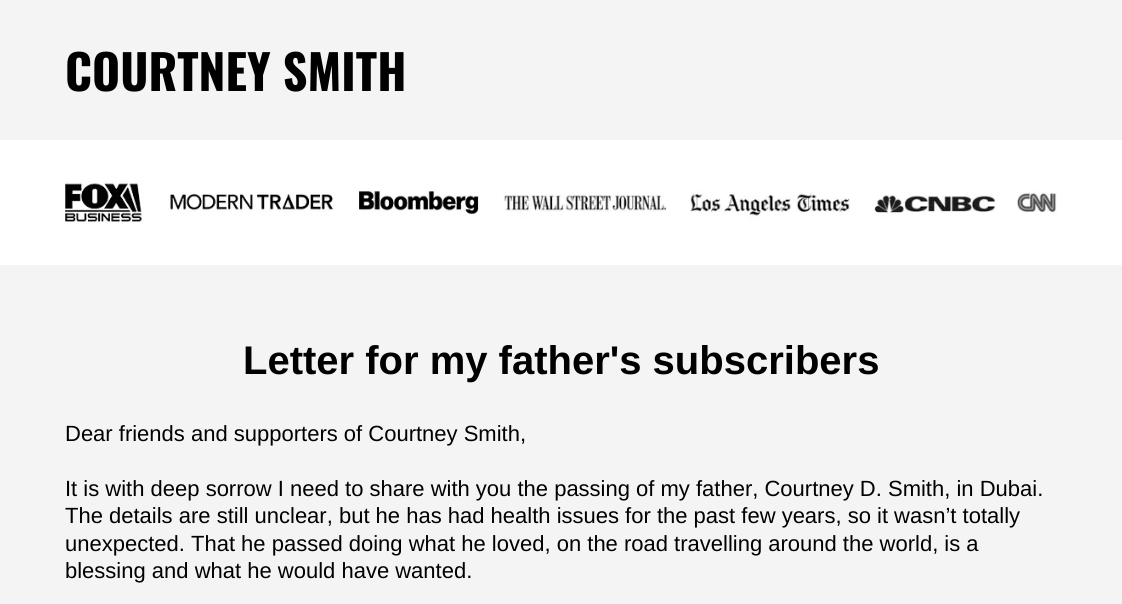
#include <cairo/cairo.h>
#include <math.h>
#include <stddef.h>

typedef struct { double x, y; const char *s; } line_t;
static cairo_t *cr;

static void rgb(unsigned color)
{
	cairo_set_source_rgb(cr, (color >> 16) / 255.0, (color >> 8 & 255) / 255.0, (color & 255) / 255.0);
}

static void image(const char *path, double x, double y, double w, double h)
{
	cairo_surface_t *image = cairo_image_surface_create_from_png(path);
	cairo_save(cr);
	cairo_set_source_surface(cr, image, x, y);
	cairo_rectangle(cr, x, y, w, h);
	cairo_fill(cr);
	cairo_restore(cr);
	cairo_surface_destroy(image);
}

int main(void) {
	cairo_surface_t *surface = cairo_image_surface_create(CAIRO_FORMAT_RGB24, 1122, 604);
	cr = cairo_create(surface);
	cairo_font_options_t *options = cairo_font_options_create();
	cairo_font_options_set_hint_metrics(options, CAIRO_HINT_METRICS_OFF);
	cairo_font_options_set_hint_style(options, CAIRO_HINT_STYLE_NONE);
	cairo_set_font_options(cr, options);
	cairo_set_miter_limit(cr, 4);
	rgb(0xffffff);
	cairo_paint(cr);
	rgb(0xf4f4f4);
	cairo_rectangle(cr, 0, 0, 1122, 140);
	cairo_fill(cr);
	image("img/1.png", 65, 181, 992, 41);
	cairo_rectangle(cr, 0, 265, 1122, 339);
	cairo_fill(cr);
	cairo_select_font_face(cr, "Oswald", CAIRO_FONT_SLANT_NORMAL, CAIRO_FONT_WEIGHT_BOLD);
	cairo_set_font_size(cr, 48);
	rgb(0x000000);
	cairo_move_to(cr, 65, 91);
	cairo_show_text(cr, "COURTNEY SMITH");
	cairo_select_font_face(cr, "Liberation Sans", CAIRO_FONT_SLANT_NORMAL, CAIRO_FONT_WEIGHT_BOLD);
	cairo_set_font_size(cr, 40);
	cairo_move_to(cr, 243, 374);
	cairo_show_text(cr, "Letter for my father's subscribers");
	cairo_select_font_face(cr, "Liberation Sans", CAIRO_FONT_SLANT_NORMAL, CAIRO_FONT_WEIGHT_NORMAL);
	cairo_set_font_size(cr, 22);
	{
		static const line_t items[] = {
			{65, 441, "Dear friends and supporters of Courtney Smith,"},
			{65, 496, "It is with deep sorrow I need to share with you the passing of my father, Courtney D. Smith, in Dubai."},
			{65, 523, "The details are still unclear, but he has had health issues for the past few years, so it wasn’t totally"},
			{65, 551, "unexpected. That he passed doing what he loved, on the road travelling around the world, is a"},
			{65, 578, "blessing and what he would have wanted."},
		};
		for (size_t i = 0; i < sizeof items / sizeof *items; i++) {
			cairo_move_to(cr, items[i].x, items[i].y);
			cairo_show_text(cr, items[i].s);
		}
	}
	cairo_surface_write_to_png(surface, "page.png");
	cairo_font_options_destroy(options);
	cairo_destroy(cr);
	cairo_surface_destroy(surface);
	return 0;
}
